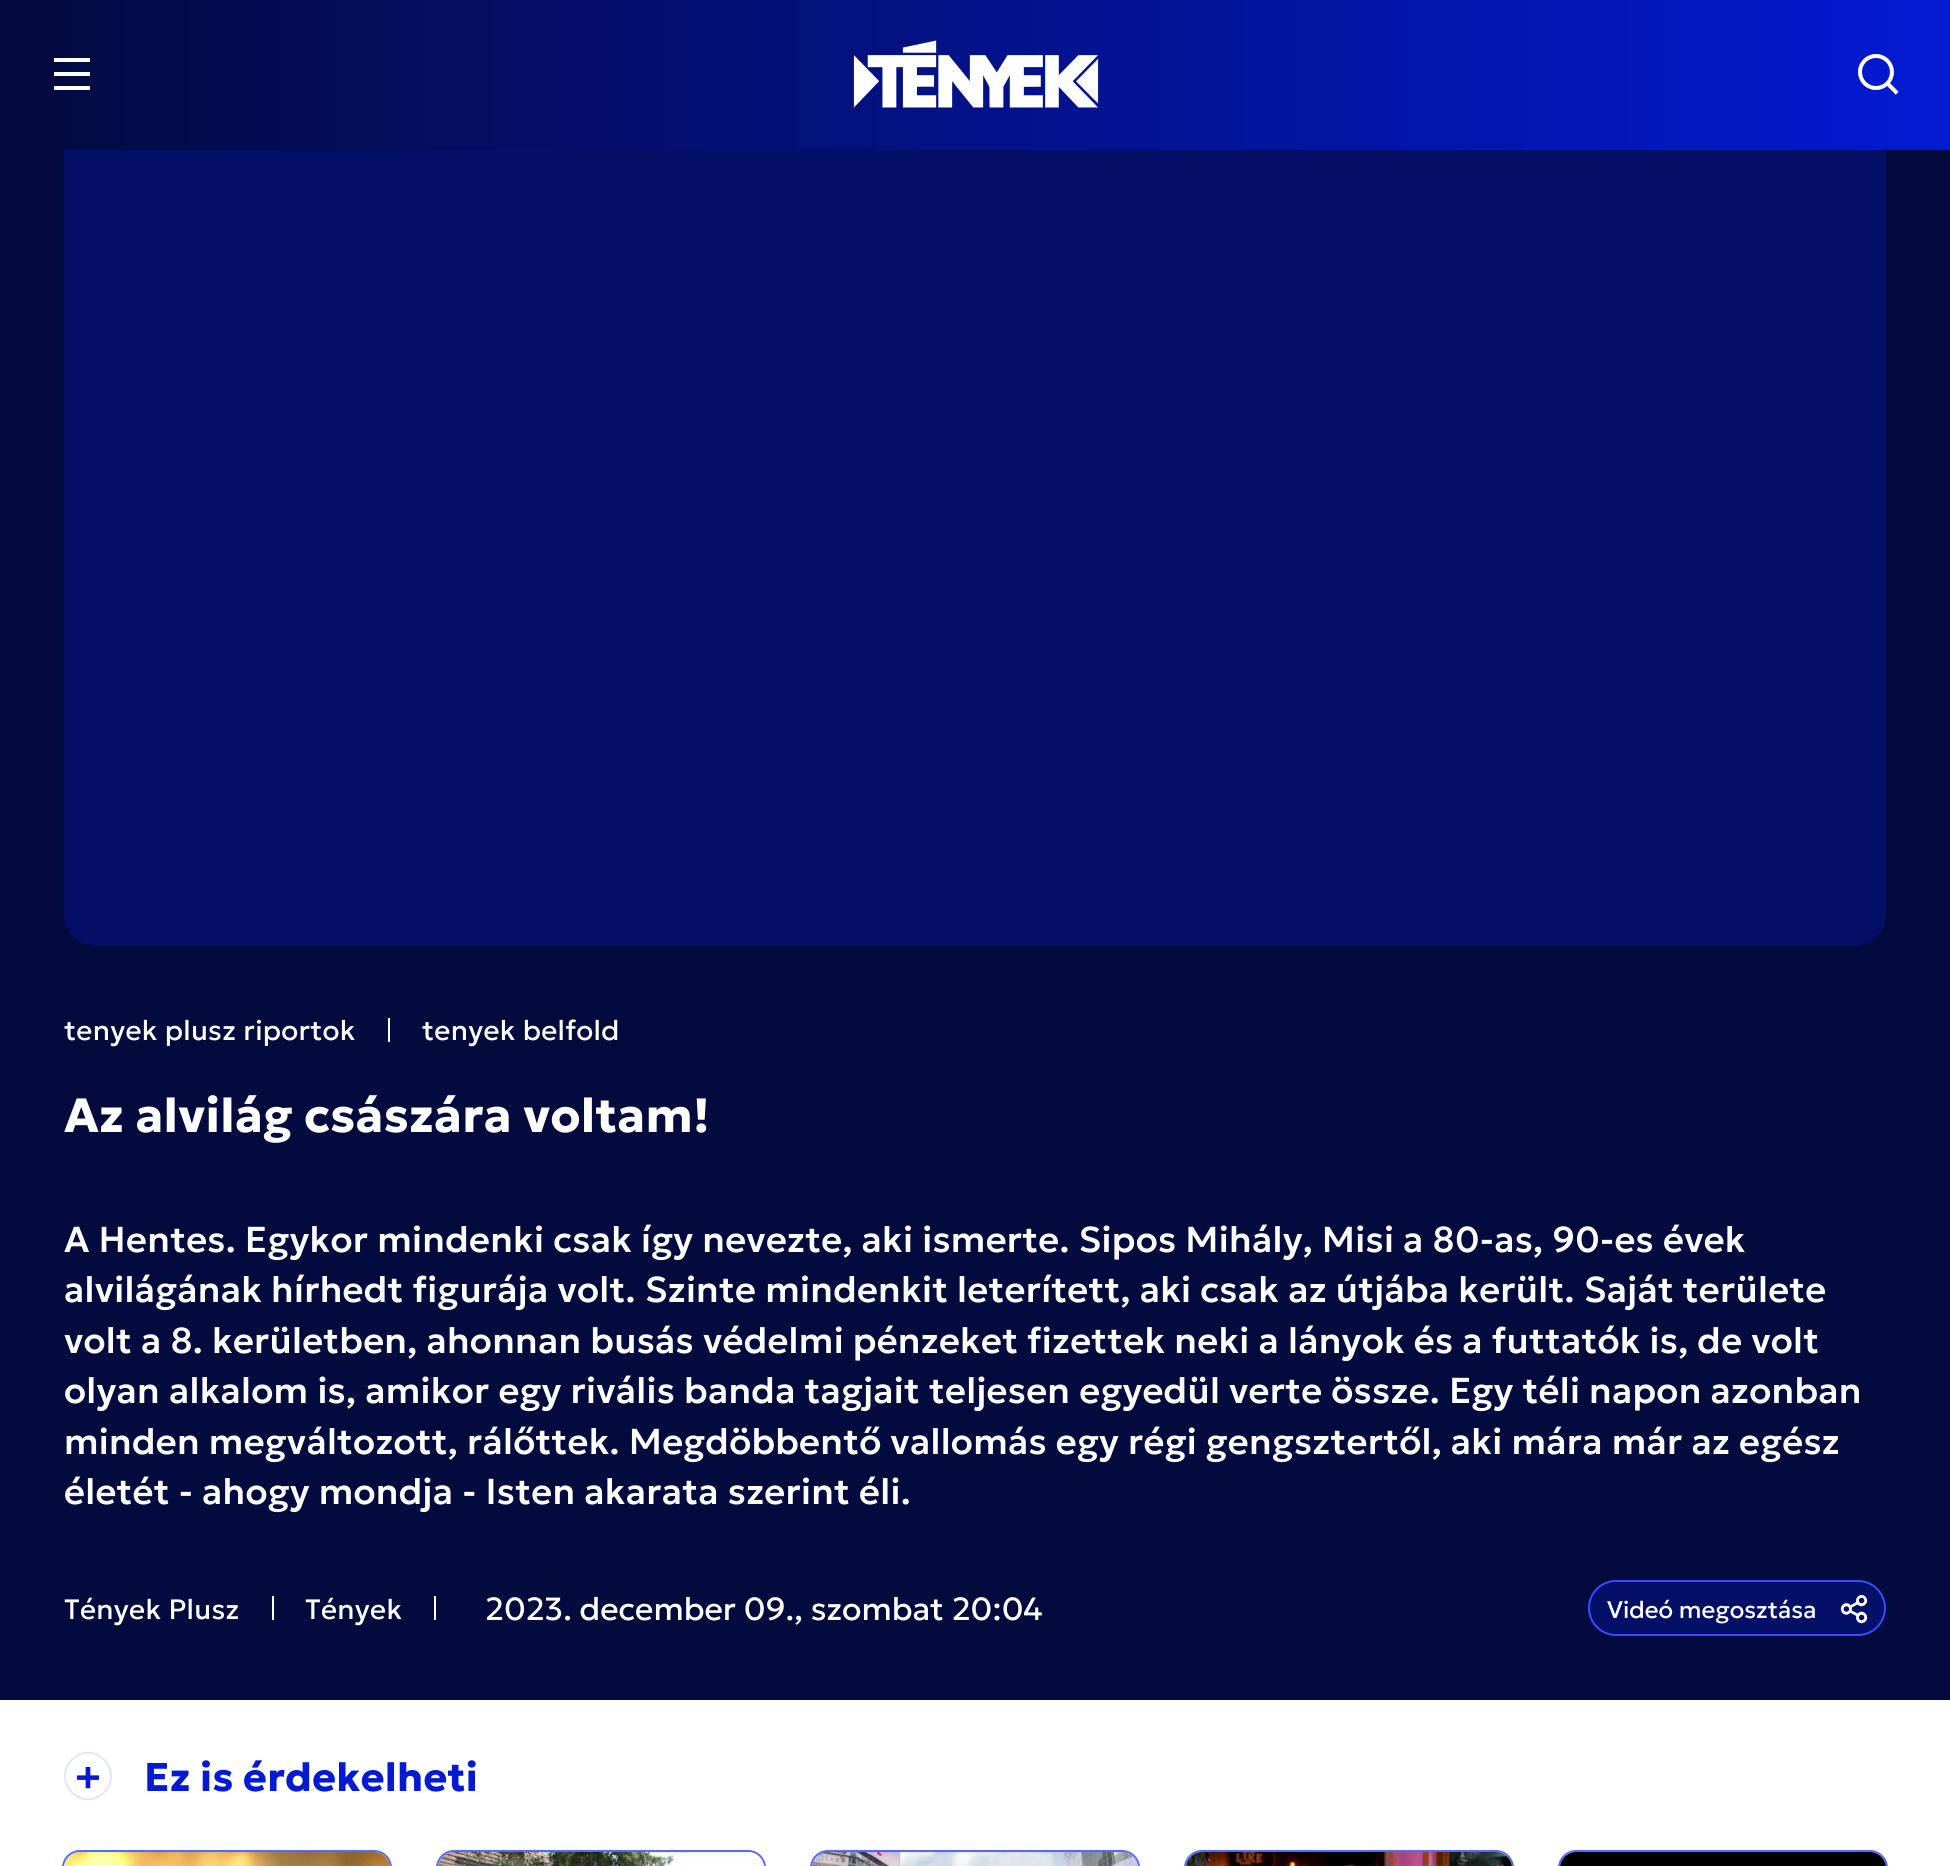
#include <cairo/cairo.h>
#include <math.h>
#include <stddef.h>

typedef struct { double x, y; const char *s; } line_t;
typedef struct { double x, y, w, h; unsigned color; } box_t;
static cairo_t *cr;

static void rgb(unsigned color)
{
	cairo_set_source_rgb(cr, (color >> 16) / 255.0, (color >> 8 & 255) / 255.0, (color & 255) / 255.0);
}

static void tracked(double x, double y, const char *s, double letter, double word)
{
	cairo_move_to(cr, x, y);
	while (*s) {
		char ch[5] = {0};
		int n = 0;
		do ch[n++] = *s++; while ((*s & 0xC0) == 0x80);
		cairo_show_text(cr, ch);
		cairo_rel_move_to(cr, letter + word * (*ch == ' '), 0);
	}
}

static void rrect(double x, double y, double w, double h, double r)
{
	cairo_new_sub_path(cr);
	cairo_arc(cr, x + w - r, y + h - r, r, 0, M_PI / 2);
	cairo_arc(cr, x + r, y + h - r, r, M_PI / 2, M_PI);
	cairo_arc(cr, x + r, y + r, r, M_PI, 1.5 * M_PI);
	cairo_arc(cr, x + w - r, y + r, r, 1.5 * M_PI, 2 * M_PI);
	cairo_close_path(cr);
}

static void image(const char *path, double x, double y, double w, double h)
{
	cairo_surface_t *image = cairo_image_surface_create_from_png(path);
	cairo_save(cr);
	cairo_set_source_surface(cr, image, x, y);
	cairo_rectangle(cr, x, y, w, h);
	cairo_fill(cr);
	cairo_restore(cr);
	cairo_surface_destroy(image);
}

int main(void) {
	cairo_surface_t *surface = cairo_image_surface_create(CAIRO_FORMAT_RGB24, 1950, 1866);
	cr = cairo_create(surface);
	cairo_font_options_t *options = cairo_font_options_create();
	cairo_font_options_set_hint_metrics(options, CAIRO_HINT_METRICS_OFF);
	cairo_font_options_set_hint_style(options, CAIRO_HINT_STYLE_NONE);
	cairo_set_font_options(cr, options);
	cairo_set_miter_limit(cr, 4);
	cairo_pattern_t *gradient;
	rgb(0xffffff);
	cairo_paint(cr);
	rgb(0x030a3e);
	cairo_rectangle(cr, 0, 150, 1950, 1550);
	cairo_fill(cr);
	rgb(0x041067);
	rrect(64, -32, 1822, 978, 32);
	cairo_fill(cr);
	gradient = cairo_pattern_create_linear(0, 74, 1950, 74);
	cairo_pattern_add_color_stop_rgba(gradient, 0, 0.012, 0.039, 0.243, 1);
	cairo_pattern_add_color_stop_rgba(gradient, 1, 0.012, 0.102, 0.824, 1);
	cairo_set_source(cr, gradient);
	cairo_pattern_destroy(gradient);
	cairo_rectangle(cr, 0, 0, 1950, 150);
	cairo_fill(cr);
	{
		static const box_t items[] = {
			{54, 58, 36, 4, 0xffffff},
			{54, 72, 36, 4, 0xffffff},
			{54, 86, 36, 4, 0xffffff},
		};
		for (size_t i = 0; i < sizeof items / sizeof *items; i++) {
			rgb(items[i].color);
			cairo_rectangle(cr, items[i].x, items[i].y, items[i].w, items[i].h);
			cairo_fill(cr);
		}
	}
	image("img/1.png", 853, 40, 246, 68);
	image("img/2.png", 1858, 54, 41, 41);
	{
		static const box_t items[] = {
			{388, 1018, 2, 24, 0xffffff},
			{272, 1596, 2, 24, 0xffffff},
			{434, 1596, 2, 24, 0xffffff},
		};
		for (size_t i = 0; i < sizeof items / sizeof *items; i++) {
			rgb(items[i].color);
			cairo_rectangle(cr, items[i].x, items[i].y, items[i].w, items[i].h);
			cairo_fill(cr);
		}
	}
	rgb(0x041067);
	rrect(1589, 1581, 296, 54, 27);
	cairo_fill_preserve(cr);
	rgb(0x364cfe);
	cairo_stroke(cr);
	image("img/3.png", 1840, 1595, 28, 29);
	cairo_arc(cr, 88, 1776, 23, 0, 2 * M_PI);
	rgb(0xe3e6ff);
	cairo_stroke(cr);
	rrect(63, 1851, 328, 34, 17);
	rgb(0x5669fd);
	cairo_stroke(cr);
	image("img/4.png", 64, 1852, 326, 14);
	rrect(437, 1851, 328, 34, 17);
	cairo_stroke(cr);
	image("img/5.png", 438, 1852, 326, 14);
	rrect(811, 1851, 328, 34, 17);
	cairo_stroke(cr);
	image("img/6.png", 812, 1852, 326, 14);
	rrect(1185, 1851, 328, 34, 17);
	cairo_stroke(cr);
	image("img/7.png", 1186, 1852, 326, 14);
	rrect(1559, 1851, 328, 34, 17);
	cairo_stroke(cr);
	image("img/8.png", 1560, 1852, 326, 14);
	cairo_select_font_face(cr, "Geologica", CAIRO_FONT_SLANT_NORMAL, CAIRO_FONT_WEIGHT_NORMAL);
	cairo_set_font_size(cr, 28);
	rgb(0xffffff);
	tracked(64, 1040, "tenyek plusz riportok", 0.3, 0);
	tracked(422, 1040, "tenyek belfold", 0.3, 0);
	cairo_select_font_face(cr, "Geologica", CAIRO_FONT_SLANT_NORMAL, CAIRO_FONT_WEIGHT_BOLD);
	cairo_set_font_size(cr, 48);
	tracked(64, 1132, "Az alvilág császára voltam!", 0.3, 0);
	cairo_select_font_face(cr, "Geologica Medium", CAIRO_FONT_SLANT_NORMAL, CAIRO_FONT_WEIGHT_NORMAL);
	cairo_set_font_size(cr, 36);
	{
		static const line_t items[] = {
			{64, 1252, "A Hentes. Egykor mindenki csak így nevezte, aki ismerte. Sipos Mihály, Misi a 80-as, 90-es évek"},
			{64, 1302, "alvilágának hírhedt figurája volt. Szinte mindenkit leterített, aki csak az útjába került. Saját területe"},
			{64, 1353, "volt a 8. kerületben, ahonnan busás védelmi pénzeket fizettek neki a lányok és a futtatók is, de volt"},
			{64, 1403, "olyan alkalom is, amikor egy rivális banda tagjait teljesen egyedül verte össze. Egy téli napon azonban"},
			{64, 1454, "minden megváltozott, rálőttek. Megdöbbentő vallomás egy régi gengsztertől, aki mára már az egész"},
			{64, 1504, "életét - ahogy mondja - Isten akarata szerint éli."},
		};
		for (size_t i = 0; i < sizeof items / sizeof *items; i++) {
			tracked(items[i].x, items[i].y, items[i].s, 0.3, 0);
		}
	}
	cairo_select_font_face(cr, "Geologica", CAIRO_FONT_SLANT_NORMAL, CAIRO_FONT_WEIGHT_NORMAL);
	cairo_set_font_size(cr, 28);
	tracked(64, 1619, "Tények Plusz", 0.3, 0);
	tracked(305, 1619, "Tények", 0.3, 0);
	cairo_set_font_size(cr, 32);
	cairo_move_to(cr, 485, 1620);
	cairo_show_text(cr, "2023. december 09., szombat 20:04");
	cairo_set_font_size(cr, 24);
	cairo_move_to(cr, 1607, 1618);
	cairo_show_text(cr, "Videó megosztása");
	cairo_select_font_face(cr, "Geologica", CAIRO_FONT_SLANT_NORMAL, CAIRO_FONT_WEIGHT_BOLD);
	cairo_set_font_size(cr, 40);
	rgb(0x031ad2);
	tracked(75, 1791, "+", 0.3, 0);
	tracked(144, 1791, "Ez is érdekelheti", 0.3, 0);
	cairo_surface_write_to_png(surface, "page.png");
	cairo_font_options_destroy(options);
	cairo_destroy(cr);
	cairo_surface_destroy(surface);
	return 0;
}
